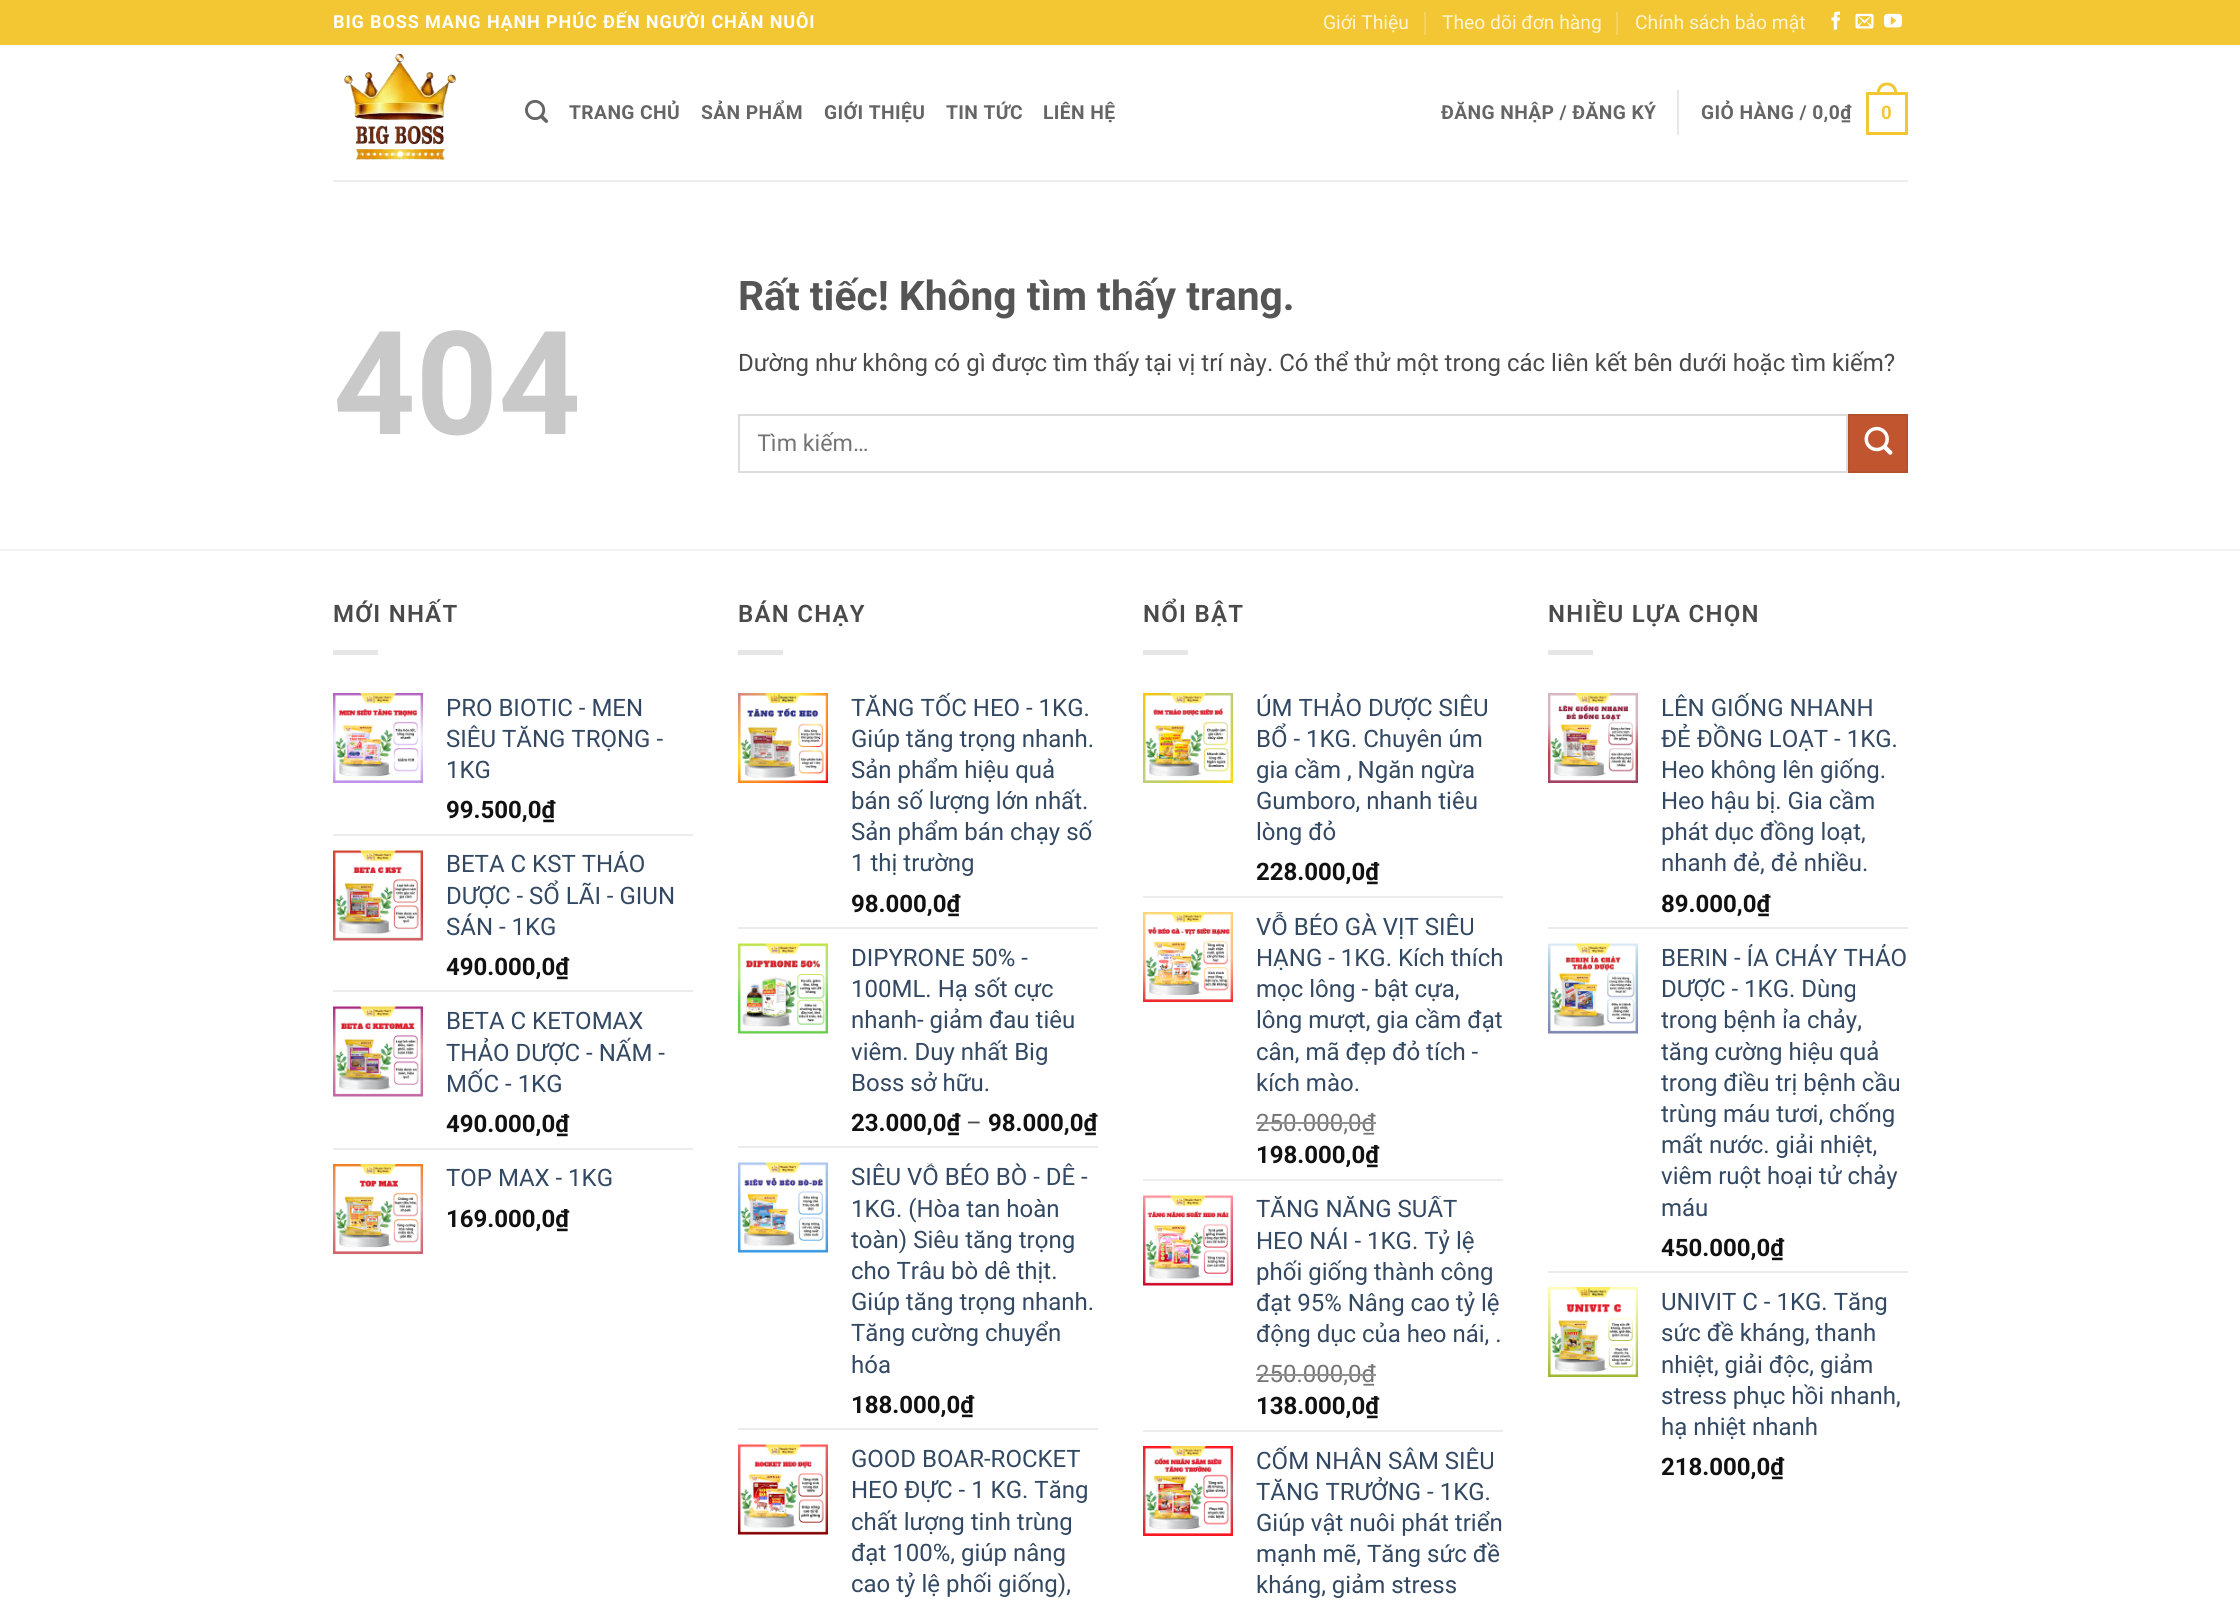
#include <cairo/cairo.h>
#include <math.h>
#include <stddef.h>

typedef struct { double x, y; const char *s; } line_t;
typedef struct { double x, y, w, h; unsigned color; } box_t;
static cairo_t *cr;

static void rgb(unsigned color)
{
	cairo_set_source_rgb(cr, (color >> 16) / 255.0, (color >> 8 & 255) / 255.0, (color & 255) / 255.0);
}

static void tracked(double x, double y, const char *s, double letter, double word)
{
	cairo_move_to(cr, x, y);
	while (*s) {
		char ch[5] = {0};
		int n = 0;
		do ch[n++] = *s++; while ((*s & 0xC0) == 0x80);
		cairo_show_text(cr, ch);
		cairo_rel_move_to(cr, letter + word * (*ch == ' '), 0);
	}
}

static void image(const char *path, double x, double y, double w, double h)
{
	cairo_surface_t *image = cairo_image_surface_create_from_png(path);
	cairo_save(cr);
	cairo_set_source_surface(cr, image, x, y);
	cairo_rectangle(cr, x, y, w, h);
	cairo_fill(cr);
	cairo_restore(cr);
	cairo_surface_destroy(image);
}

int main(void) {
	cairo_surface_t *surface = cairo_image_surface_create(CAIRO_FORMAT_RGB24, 2240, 1608);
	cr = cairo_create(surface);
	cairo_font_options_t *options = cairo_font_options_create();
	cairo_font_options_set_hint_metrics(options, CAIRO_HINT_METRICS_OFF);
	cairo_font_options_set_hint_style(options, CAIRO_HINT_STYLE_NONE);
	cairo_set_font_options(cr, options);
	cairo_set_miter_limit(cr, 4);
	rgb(0xffffff);
	cairo_paint(cr);
	{
		static const box_t items[] = {
			{0, 0, 2240, 45, 0xf3c733},
			{1424, 12, 2, 23, 0xf5d25c},
			{1616, 12, 2, 23, 0xf5d25c},
		};
		for (size_t i = 0; i < sizeof items / sizeof *items; i++) {
			rgb(items[i].color);
			cairo_rectangle(cr, items[i].x, items[i].y, items[i].w, items[i].h);
			cairo_fill(cr);
		}
	}
	image("img/1.png", 1831, 11, 9, 19);
	image("img/2.png", 1855, 13, 19, 16);
	image("img/3.png", 1884, 13, 18, 15);
	image("img/4.png", 344, 53, 112, 107);
	image("img/5.png", 525, 99, 23, 24);
	rgb(0xe6e6e6);
	cairo_rectangle(cr, 1677, 90, 2, 45);
	cairo_fill(cr);
	cairo_rectangle(cr, 1867.5, 93.5, 39, 40);
	rgb(0xf3c733);
	cairo_set_line_width(cr, 3);
	cairo_stroke(cr);
	cairo_set_fill_rule(cr, CAIRO_FILL_RULE_EVEN_ODD);
	cairo_new_path(cr);
	cairo_move_to(cr, 1887, 82.5);
	cairo_curve_to(cr, 1894, 82.5, 1897.5, 88, 1897.5, 94.5);
	cairo_line_to(cr, 1876.5, 94.5);
	cairo_curve_to(cr, 1876.5, 88, 1880, 82.5, 1887, 82.5);
	cairo_close_path(cr);
	cairo_move_to(cr, 1887, 85.5);
	cairo_curve_to(cr, 1892.5, 85.5, 1894.5, 90, 1894.5, 94.5);
	cairo_line_to(cr, 1879.5, 94.5);
	cairo_curve_to(cr, 1879.5, 90, 1881.5, 85.5, 1887, 85.5);
	cairo_close_path(cr);
	cairo_fill(cr);
	rgb(0xededed);
	cairo_rectangle(cr, 333, 180, 1575, 2);
	cairo_fill(cr);
	cairo_rectangle(cr, 739, 415, 1108, 57);
	rgb(0xdddddd);
	cairo_set_line_width(cr, 2);
	cairo_stroke(cr);
	rgb(0xc05530);
	cairo_rectangle(cr, 1849, 415, 58, 57);
	cairo_fill_preserve(cr);
	rgb(0xb6512e);
	cairo_stroke(cr);
	image("img/6.png", 1864, 426, 29, 29);
	rgb(0xf2f2f2);
	cairo_rectangle(cr, 0, 549, 2240, 2);
	cairo_fill(cr);
	rgb(0xe6e6e6);
	cairo_rectangle(cr, 333, 650, 45, 5);
	cairo_fill(cr);
	image("img/7.png", 333, 693, 90, 90);
	rgb(0xececec);
	cairo_rectangle(cr, 333, 834, 360, 2);
	cairo_fill(cr);
	image("img/8.png", 333, 850, 90, 91);
	cairo_rectangle(cr, 333, 990, 360, 2);
	cairo_fill(cr);
	image("img/9.png", 333, 1006, 90, 91);
	cairo_rectangle(cr, 333, 1148, 360, 2);
	cairo_fill(cr);
	image("img/10.png", 333, 1164, 90, 90);
	rgb(0xe6e6e6);
	cairo_rectangle(cr, 738, 650, 45, 5);
	cairo_fill(cr);
	image("img/11.png", 738, 693, 90, 90);
	rgb(0xececec);
	cairo_rectangle(cr, 738, 927, 360, 2);
	cairo_fill(cr);
	image("img/12.png", 738, 943, 90, 91);
	cairo_rectangle(cr, 738, 1146, 360, 2);
	cairo_fill(cr);
	image("img/13.png", 738, 1162, 90, 91);
	cairo_rectangle(cr, 738, 1428, 360, 2);
	cairo_fill(cr);
	image("img/14.png", 738, 1444, 90, 91);
	rgb(0xe6e6e6);
	cairo_rectangle(cr, 1143, 650, 45, 5);
	cairo_fill(cr);
	image("img/15.png", 1143, 693, 90, 90);
	rgb(0xececec);
	cairo_rectangle(cr, 1143, 896, 360, 2);
	cairo_fill(cr);
	image("img/16.png", 1143, 912, 90, 90);
	cairo_rectangle(cr, 1143, 1179, 360, 2);
	cairo_fill(cr);
	image("img/17.png", 1143, 1195, 90, 91);
	cairo_rectangle(cr, 1143, 1430, 360, 2);
	cairo_fill(cr);
	image("img/18.png", 1143, 1446, 90, 90);
	rgb(0xe6e6e6);
	cairo_rectangle(cr, 1548, 650, 45, 5);
	cairo_fill(cr);
	image("img/19.png", 1548, 693, 90, 90);
	rgb(0xececec);
	cairo_rectangle(cr, 1548, 927, 360, 2);
	cairo_fill(cr);
	image("img/20.png", 1548, 943, 90, 91);
	cairo_rectangle(cr, 1548, 1271, 360, 2);
	cairo_fill(cr);
	image("img/21.png", 1548, 1287, 90, 90);
	cairo_select_font_face(cr, "Roboto", CAIRO_FONT_SLANT_NORMAL, CAIRO_FONT_WEIGHT_BOLD);
	cairo_set_font_size(cr, 18);
	rgb(0xffffff);
	tracked(333, 28, "BIG BOSS MANG HẠNH PHÚC ĐẾN NGƯỜI CHĂN NUÔI", 0.9, 0);
	cairo_select_font_face(cr, "Roboto", CAIRO_FONT_SLANT_NORMAL, CAIRO_FONT_WEIGHT_NORMAL);
	cairo_set_font_size(cr, 19.25);
	rgb(0xfdf4d6);
	{
		static const line_t items[] = {
			{1323, 29, "Giới Thiệu"},
			{1442, 29, "Theo dõi đơn hàng"},
			{1635, 29, "Chính sách bảo mật"},
		};
		for (size_t i = 0; i < sizeof items / sizeof *items; i++) {
			cairo_move_to(cr, items[i].x, items[i].y);
			cairo_show_text(cr, items[i].s);
		}
	}
	cairo_select_font_face(cr, "Roboto", CAIRO_FONT_SLANT_NORMAL, CAIRO_FONT_WEIGHT_BOLD);
	rgb(0x656565);
	{
		static const line_t items[] = {
			{569, 119, "TRANG CHỦ"},
			{701, 119, "SẢN PHẨM"},
			{824, 119, "GIỚI THIỆU"},
			{946, 119, "TIN TỨC"},
			{1043, 119, "LIÊN HỆ"},
			{1441, 119, "ĐĂNG NHẬP / ĐĂNG KÝ"},
			{1701, 119, "GIỎ HÀNG / 0,0₫"},
		};
		for (size_t i = 0; i < sizeof items / sizeof *items; i++) {
			tracked(items[i].x, items[i].y, items[i].s, 0.4, 0);
		}
	}
	cairo_select_font_face(cr, "Liberation Sans", CAIRO_FONT_SLANT_NORMAL, CAIRO_FONT_WEIGHT_BOLD);
	rgb(0xf3c733);
	tracked(1881, 119, "0", 0.4, 0);
	cairo_select_font_face(cr, "Roboto", CAIRO_FONT_SLANT_NORMAL, CAIRO_FONT_WEIGHT_BOLD);
	cairo_set_font_size(cr, 144);
	rgb(0xc9c9c9);
	cairo_move_to(cr, 333, 434);
	cairo_show_text(cr, "404");
	cairo_set_font_size(cr, 40.75);
	rgb(0x555555);
	cairo_move_to(cr, 738, 310);
	cairo_show_text(cr, "Rất tiếc! Không tìm thấy trang.");
	cairo_select_font_face(cr, "Roboto", CAIRO_FONT_SLANT_NORMAL, CAIRO_FONT_WEIGHT_NORMAL);
	cairo_set_font_size(cr, 24);
	rgb(0x4a4a4a);
	cairo_move_to(cr, 738, 371);
	cairo_show_text(cr, "Dường như không có gì được tìm thấy tại vị trí này. Có thể thử một trong các liên kết bên dưới hoặc tìm kiếm?");
	cairo_save(cr);
	cairo_set_fill_rule(cr, CAIRO_FILL_RULE_WINDING);
	cairo_rectangle(cr, 758, 429, 1066, 27);
	cairo_clip(cr);
	cairo_set_font_size(cr, 23.25);
	rgb(0x757575);
	cairo_move_to(cr, 757, 451);
	cairo_show_text(cr, "Tìm kiếm…");
	cairo_restore(cr);
	cairo_select_font_face(cr, "Roboto SemiBold", CAIRO_FONT_SLANT_NORMAL, CAIRO_FONT_WEIGHT_NORMAL);
	tracked(333, 622, "MỚI NHẤT", 1.25, 0);
	cairo_select_font_face(cr, "Roboto", CAIRO_FONT_SLANT_NORMAL, CAIRO_FONT_WEIGHT_NORMAL);
	rgb(0x334862);
	{
		static const line_t items[] = {
			{446, 716, "PRO BIOTIC - MEN"},
			{446, 747, "SIÊU TĂNG TRỌNG -"},
			{446, 778, "1KG"},
		};
		for (size_t i = 0; i < sizeof items / sizeof *items; i++) {
			cairo_move_to(cr, items[i].x, items[i].y);
			cairo_show_text(cr, items[i].s);
		}
	}
	cairo_select_font_face(cr, "Roboto", CAIRO_FONT_SLANT_NORMAL, CAIRO_FONT_WEIGHT_BOLD);
	rgb(0x111111);
	cairo_move_to(cr, 446, 818);
	cairo_show_text(cr, "99.500,0₫");
	cairo_save(cr);
	cairo_set_fill_rule(cr, CAIRO_FILL_RULE_WINDING);
	cairo_rectangle(cr, 446, 851, 247, 93);
	cairo_clip(cr);
	cairo_select_font_face(cr, "Roboto", CAIRO_FONT_SLANT_NORMAL, CAIRO_FONT_WEIGHT_NORMAL);
	rgb(0x334862);
	cairo_move_to(cr, 446, 872);
	cairo_show_text(cr, "BETA C KST THẢO");
	cairo_restore(cr);
	cairo_select_font_face(cr, "Roboto", CAIRO_FONT_SLANT_NORMAL, CAIRO_FONT_WEIGHT_NORMAL);
	rgb(0x334862);
	cairo_move_to(cr, 446, 904);
	cairo_show_text(cr, "DƯỢC - SỔ LÃI - GIUN");
	cairo_move_to(cr, 446, 935);
	cairo_show_text(cr, "SÁN - 1KG");
	cairo_select_font_face(cr, "Roboto", CAIRO_FONT_SLANT_NORMAL, CAIRO_FONT_WEIGHT_BOLD);
	rgb(0x111111);
	cairo_move_to(cr, 446, 975);
	cairo_show_text(cr, "490.000,0₫");
	cairo_select_font_face(cr, "Roboto", CAIRO_FONT_SLANT_NORMAL, CAIRO_FONT_WEIGHT_NORMAL);
	rgb(0x334862);
	{
		static const line_t items[] = {
			{446, 1029, "BETA C KETOMAX"},
			{446, 1061, "THẢO DƯỢC - NẤM -"},
			{446, 1092, "MỐC - 1KG"},
		};
		for (size_t i = 0; i < sizeof items / sizeof *items; i++) {
			cairo_move_to(cr, items[i].x, items[i].y);
			cairo_show_text(cr, items[i].s);
		}
	}
	cairo_select_font_face(cr, "Roboto", CAIRO_FONT_SLANT_NORMAL, CAIRO_FONT_WEIGHT_BOLD);
	rgb(0x111111);
	cairo_move_to(cr, 446, 1132);
	cairo_show_text(cr, "490.000,0₫");
	cairo_select_font_face(cr, "Roboto", CAIRO_FONT_SLANT_NORMAL, CAIRO_FONT_WEIGHT_NORMAL);
	rgb(0x334862);
	cairo_move_to(cr, 446, 1186);
	cairo_show_text(cr, "TOP MAX - 1KG");
	cairo_select_font_face(cr, "Roboto", CAIRO_FONT_SLANT_NORMAL, CAIRO_FONT_WEIGHT_BOLD);
	rgb(0x111111);
	cairo_move_to(cr, 446, 1227);
	cairo_show_text(cr, "169.000,0₫");
	cairo_select_font_face(cr, "Roboto SemiBold", CAIRO_FONT_SLANT_NORMAL, CAIRO_FONT_WEIGHT_NORMAL);
	rgb(0x4a4a4a);
	tracked(738, 622, "BÁN CHẠY", 1.25, 0);
	cairo_save(cr);
	cairo_set_fill_rule(cr, CAIRO_FILL_RULE_WINDING);
	cairo_rectangle(cr, 851, 693, 247, 188);
	cairo_clip(cr);
	cairo_select_font_face(cr, "Roboto", CAIRO_FONT_SLANT_NORMAL, CAIRO_FONT_WEIGHT_NORMAL);
	rgb(0x334862);
	cairo_move_to(cr, 851, 716);
	cairo_show_text(cr, "TĂNG TỐC HEO - 1KG.");
	cairo_restore(cr);
	cairo_select_font_face(cr, "Roboto", CAIRO_FONT_SLANT_NORMAL, CAIRO_FONT_WEIGHT_NORMAL);
	rgb(0x334862);
	{
		static const line_t items[] = {
			{851, 747, "Giúp tăng trọng nhanh."},
			{851, 778, "Sản phẩm hiệu quả"},
			{851, 809, "bán số lượng lớn nhất."},
			{851, 840, "Sản phẩm bán chạy số"},
			{851, 871, "1 thị trường"},
		};
		for (size_t i = 0; i < sizeof items / sizeof *items; i++) {
			cairo_move_to(cr, items[i].x, items[i].y);
			cairo_show_text(cr, items[i].s);
		}
	}
	cairo_select_font_face(cr, "Roboto", CAIRO_FONT_SLANT_NORMAL, CAIRO_FONT_WEIGHT_BOLD);
	rgb(0x111111);
	cairo_move_to(cr, 851, 912);
	cairo_show_text(cr, "98.000,0₫");
	cairo_select_font_face(cr, "Roboto", CAIRO_FONT_SLANT_NORMAL, CAIRO_FONT_WEIGHT_NORMAL);
	rgb(0x334862);
	{
		static const line_t items[] = {
			{851, 966, "DIPYRONE 50% -"},
			{851, 997, "100ML. Hạ sốt cực"},
			{851, 1028, "nhanh- giảm đau tiêu"},
			{851, 1060, "viêm. Duy nhất Big"},
			{851, 1091, "Boss sở hữu."},
		};
		for (size_t i = 0; i < sizeof items / sizeof *items; i++) {
			cairo_move_to(cr, items[i].x, items[i].y);
			cairo_show_text(cr, items[i].s);
		}
	}
	cairo_select_font_face(cr, "Roboto", CAIRO_FONT_SLANT_NORMAL, CAIRO_FONT_WEIGHT_BOLD);
	rgb(0x111111);
	cairo_move_to(cr, 851, 1131);
	cairo_show_text(cr, "23.000,0₫");
	cairo_select_font_face(cr, "Roboto", CAIRO_FONT_SLANT_NORMAL, CAIRO_FONT_WEIGHT_NORMAL);
	rgb(0x4a4a4a);
	cairo_move_to(cr, 966, 1131);
	cairo_show_text(cr, "–");
	cairo_select_font_face(cr, "Roboto", CAIRO_FONT_SLANT_NORMAL, CAIRO_FONT_WEIGHT_BOLD);
	rgb(0x111111);
	cairo_move_to(cr, 988, 1131);
	cairo_show_text(cr, "98.000,0₫");
	cairo_save(cr);
	cairo_set_fill_rule(cr, CAIRO_FILL_RULE_WINDING);
	cairo_rectangle(cr, 851, 1163, 247, 219);
	cairo_clip(cr);
	cairo_select_font_face(cr, "Roboto", CAIRO_FONT_SLANT_NORMAL, CAIRO_FONT_WEIGHT_NORMAL);
	rgb(0x334862);
	cairo_move_to(cr, 851, 1185);
	cairo_show_text(cr, "SIÊU VỖ BÉO BÒ - DÊ -");
	cairo_restore(cr);
	cairo_select_font_face(cr, "Roboto", CAIRO_FONT_SLANT_NORMAL, CAIRO_FONT_WEIGHT_NORMAL);
	rgb(0x334862);
	{
		static const line_t items[] = {
			{851, 1217, "1KG. (Hòa tan hoàn"},
			{851, 1248, "toàn) Siêu tăng trọng"},
			{851, 1279, "cho Trâu bò dê thịt."},
			{851, 1310, "Giúp tăng trọng nhanh."},
			{851, 1341, "Tăng cường chuyển"},
			{851, 1373, "hóa"},
		};
		for (size_t i = 0; i < sizeof items / sizeof *items; i++) {
			cairo_move_to(cr, items[i].x, items[i].y);
			cairo_show_text(cr, items[i].s);
		}
	}
	cairo_select_font_face(cr, "Roboto", CAIRO_FONT_SLANT_NORMAL, CAIRO_FONT_WEIGHT_BOLD);
	rgb(0x111111);
	cairo_move_to(cr, 851, 1413);
	cairo_show_text(cr, "188.000,0₫");
	cairo_select_font_face(cr, "Roboto", CAIRO_FONT_SLANT_NORMAL, CAIRO_FONT_WEIGHT_NORMAL);
	rgb(0x334862);
	{
		static const line_t items[] = {
			{851, 1467, "GOOD BOAR-ROCKET"},
			{851, 1498, "HEO ĐỰC - 1 KG. Tăng"},
			{851, 1530, "chất lượng tinh trùng"},
			{851, 1561, "đạt 100%, giúp nâng"},
			{851, 1592, "cao tỷ lệ phối giống),"},
		};
		for (size_t i = 0; i < sizeof items / sizeof *items; i++) {
			cairo_move_to(cr, items[i].x, items[i].y);
			cairo_show_text(cr, items[i].s);
		}
	}
	cairo_select_font_face(cr, "Roboto SemiBold", CAIRO_FONT_SLANT_NORMAL, CAIRO_FONT_WEIGHT_NORMAL);
	rgb(0x4a4a4a);
	tracked(1143, 622, "NỔI BẬT", 1.25, 0);
	cairo_select_font_face(cr, "Roboto", CAIRO_FONT_SLANT_NORMAL, CAIRO_FONT_WEIGHT_NORMAL);
	rgb(0x334862);
	{
		static const line_t items[] = {
			{1256, 716, "ÚM THẢO DƯỢC SIÊU"},
			{1256, 747, "BỔ - 1KG. Chuyên úm"},
			{1256, 778, "gia cầm , Ngăn ngừa"},
			{1256, 809, "Gumboro, nhanh tiêu"},
			{1256, 840, "lòng đỏ"},
		};
		for (size_t i = 0; i < sizeof items / sizeof *items; i++) {
			cairo_move_to(cr, items[i].x, items[i].y);
			cairo_show_text(cr, items[i].s);
		}
	}
	cairo_select_font_face(cr, "Roboto", CAIRO_FONT_SLANT_NORMAL, CAIRO_FONT_WEIGHT_BOLD);
	rgb(0x111111);
	cairo_move_to(cr, 1256, 880);
	cairo_show_text(cr, "228.000,0₫");
	cairo_save(cr);
	cairo_set_fill_rule(cr, CAIRO_FILL_RULE_WINDING);
	cairo_rectangle(cr, 1256, 912, 247, 188);
	cairo_clip(cr);
	cairo_select_font_face(cr, "Roboto", CAIRO_FONT_SLANT_NORMAL, CAIRO_FONT_WEIGHT_NORMAL);
	rgb(0x334862);
	cairo_move_to(cr, 1256, 935);
	cairo_show_text(cr, "VỖ BÉO GÀ VỊT SIÊU");
	cairo_restore(cr);
	cairo_select_font_face(cr, "Roboto", CAIRO_FONT_SLANT_NORMAL, CAIRO_FONT_WEIGHT_NORMAL);
	rgb(0x334862);
	{
		static const line_t items[] = {
			{1256, 966, "HẠNG - 1KG. Kích thích"},
			{1256, 997, "mọc lông - bật cựa,"},
			{1256, 1028, "lông mượt, gia cầm đạt"},
			{1256, 1060, "cân, mã đẹp đỏ tích -"},
			{1256, 1091, "kích mào."},
		};
		for (size_t i = 0; i < sizeof items / sizeof *items; i++) {
			cairo_move_to(cr, items[i].x, items[i].y);
			cairo_show_text(cr, items[i].s);
		}
	}
	rgb(0x757575);
	cairo_move_to(cr, 1256, 1131);
	cairo_show_text(cr, "250.000,0₫");
	rgb(0x929292);
	cairo_rectangle(cr, 1256, 1122, 120, 2);
	cairo_fill(cr);
	cairo_select_font_face(cr, "Roboto", CAIRO_FONT_SLANT_NORMAL, CAIRO_FONT_WEIGHT_BOLD);
	rgb(0x111111);
	cairo_move_to(cr, 1256, 1163);
	cairo_show_text(cr, "198.000,0₫");
	cairo_save(cr);
	cairo_set_fill_rule(cr, CAIRO_FILL_RULE_WINDING);
	cairo_rectangle(cr, 1256, 1196, 247, 156);
	cairo_clip(cr);
	cairo_select_font_face(cr, "Roboto", CAIRO_FONT_SLANT_NORMAL, CAIRO_FONT_WEIGHT_NORMAL);
	rgb(0x334862);
	cairo_move_to(cr, 1256, 1217);
	cairo_show_text(cr, "TĂNG NĂNG SUẤT");
	cairo_restore(cr);
	cairo_select_font_face(cr, "Roboto", CAIRO_FONT_SLANT_NORMAL, CAIRO_FONT_WEIGHT_NORMAL);
	rgb(0x334862);
	{
		static const line_t items[] = {
			{1256, 1249, "HEO NÁI - 1KG. Tỷ lệ"},
			{1256, 1280, "phối giống thành công"},
			{1256, 1311, "đạt 95% Nâng cao tỷ lệ"},
			{1256, 1342, "động dục của heo nái, ."},
		};
		for (size_t i = 0; i < sizeof items / sizeof *items; i++) {
			cairo_move_to(cr, items[i].x, items[i].y);
			cairo_show_text(cr, items[i].s);
		}
	}
	rgb(0x757575);
	cairo_move_to(cr, 1256, 1382);
	cairo_show_text(cr, "250.000,0₫");
	rgb(0x929292);
	cairo_rectangle(cr, 1256, 1374, 120, 2);
	cairo_fill(cr);
	cairo_select_font_face(cr, "Roboto", CAIRO_FONT_SLANT_NORMAL, CAIRO_FONT_WEIGHT_BOLD);
	rgb(0x111111);
	cairo_move_to(cr, 1256, 1414);
	cairo_show_text(cr, "138.000,0₫");
	cairo_save(cr);
	cairo_set_fill_rule(cr, CAIRO_FILL_RULE_WINDING);
	cairo_rectangle(cr, 1256, 1446, 247, 156);
	cairo_clip(cr);
	cairo_select_font_face(cr, "Roboto", CAIRO_FONT_SLANT_NORMAL, CAIRO_FONT_WEIGHT_NORMAL);
	rgb(0x334862);
	cairo_move_to(cr, 1256, 1469);
	cairo_show_text(cr, "CỐM NHÂN SÂM SIÊU");
	cairo_restore(cr);
	cairo_select_font_face(cr, "Roboto", CAIRO_FONT_SLANT_NORMAL, CAIRO_FONT_WEIGHT_NORMAL);
	rgb(0x334862);
	{
		static const line_t items[] = {
			{1256, 1500, "TĂNG TRƯỞNG - 1KG."},
			{1256, 1531, "Giúp vật nuôi phát triển"},
			{1256, 1562, "mạnh mẽ, Tăng sức đề"},
			{1256, 1593, "kháng, giảm stress"},
		};
		for (size_t i = 0; i < sizeof items / sizeof *items; i++) {
			cairo_move_to(cr, items[i].x, items[i].y);
			cairo_show_text(cr, items[i].s);
		}
	}
	cairo_select_font_face(cr, "Roboto SemiBold", CAIRO_FONT_SLANT_NORMAL, CAIRO_FONT_WEIGHT_NORMAL);
	rgb(0x4a4a4a);
	tracked(1548, 622, "NHIỀU LỰA CHỌN", 1.25, 0);
	cairo_save(cr);
	cairo_set_fill_rule(cr, CAIRO_FILL_RULE_WINDING);
	cairo_rectangle(cr, 1661, 693, 247, 188);
	cairo_clip(cr);
	cairo_select_font_face(cr, "Roboto", CAIRO_FONT_SLANT_NORMAL, CAIRO_FONT_WEIGHT_NORMAL);
	rgb(0x334862);
	cairo_move_to(cr, 1661, 716);
	cairo_show_text(cr, "LÊN GIỐNG NHANH");
	cairo_restore(cr);
	cairo_select_font_face(cr, "Roboto", CAIRO_FONT_SLANT_NORMAL, CAIRO_FONT_WEIGHT_NORMAL);
	rgb(0x334862);
	{
		static const line_t items[] = {
			{1661, 747, "ĐẺ ĐỒNG LOẠT - 1KG."},
			{1661, 778, "Heo không lên giống."},
			{1661, 809, "Heo hậu bị. Gia cầm"},
			{1661, 840, "phát dục đồng loạt,"},
			{1661, 871, "nhanh đẻ, đẻ nhiều."},
		};
		for (size_t i = 0; i < sizeof items / sizeof *items; i++) {
			cairo_move_to(cr, items[i].x, items[i].y);
			cairo_show_text(cr, items[i].s);
		}
	}
	cairo_select_font_face(cr, "Roboto", CAIRO_FONT_SLANT_NORMAL, CAIRO_FONT_WEIGHT_BOLD);
	rgb(0x111111);
	cairo_move_to(cr, 1661, 912);
	cairo_show_text(cr, "89.000,0₫");
	cairo_save(cr);
	cairo_set_fill_rule(cr, CAIRO_FILL_RULE_WINDING);
	cairo_rectangle(cr, 1661, 944, 247, 280);
	cairo_clip(cr);
	cairo_select_font_face(cr, "Roboto", CAIRO_FONT_SLANT_NORMAL, CAIRO_FONT_WEIGHT_NORMAL);
	rgb(0x334862);
	cairo_move_to(cr, 1661, 966);
	cairo_show_text(cr, "BERIN - ỈA CHẢY THẢO");
	cairo_restore(cr);
	cairo_select_font_face(cr, "Roboto", CAIRO_FONT_SLANT_NORMAL, CAIRO_FONT_WEIGHT_NORMAL);
	rgb(0x334862);
	{
		static const line_t items[] = {
			{1661, 997, "DƯỢC - 1KG. Dùng"},
			{1661, 1028, "trong bệnh ỉa chảy,"},
			{1661, 1060, "tăng cường hiệu quả"},
			{1661, 1091, "trong điều trị bệnh cầu"},
			{1661, 1122, "trùng máu tươi, chống"},
			{1661, 1153, "mất nước. giải nhiệt,"},
			{1661, 1184, "viêm ruột hoại tử chảy"},
			{1661, 1216, "máu"},
		};
		for (size_t i = 0; i < sizeof items / sizeof *items; i++) {
			cairo_move_to(cr, items[i].x, items[i].y);
			cairo_show_text(cr, items[i].s);
		}
	}
	cairo_select_font_face(cr, "Roboto", CAIRO_FONT_SLANT_NORMAL, CAIRO_FONT_WEIGHT_BOLD);
	rgb(0x111111);
	cairo_move_to(cr, 1661, 1256);
	cairo_show_text(cr, "450.000,0₫");
	cairo_select_font_face(cr, "Roboto", CAIRO_FONT_SLANT_NORMAL, CAIRO_FONT_WEIGHT_NORMAL);
	rgb(0x334862);
	{
		static const line_t items[] = {
			{1661, 1310, "UNIVIT C - 1KG. Tăng"},
			{1661, 1341, "sức đề kháng, thanh"},
			{1661, 1373, "nhiệt, giải độc, giảm"},
			{1661, 1404, "stress phục hồi nhanh,"},
			{1661, 1435, "hạ nhiệt nhanh"},
		};
		for (size_t i = 0; i < sizeof items / sizeof *items; i++) {
			cairo_move_to(cr, items[i].x, items[i].y);
			cairo_show_text(cr, items[i].s);
		}
	}
	cairo_select_font_face(cr, "Roboto", CAIRO_FONT_SLANT_NORMAL, CAIRO_FONT_WEIGHT_BOLD);
	rgb(0x111111);
	cairo_move_to(cr, 1661, 1475);
	cairo_show_text(cr, "218.000,0₫");
	cairo_surface_write_to_png(surface, "page.png");
	cairo_font_options_destroy(options);
	cairo_destroy(cr);
	cairo_surface_destroy(surface);
	return 0;
}
